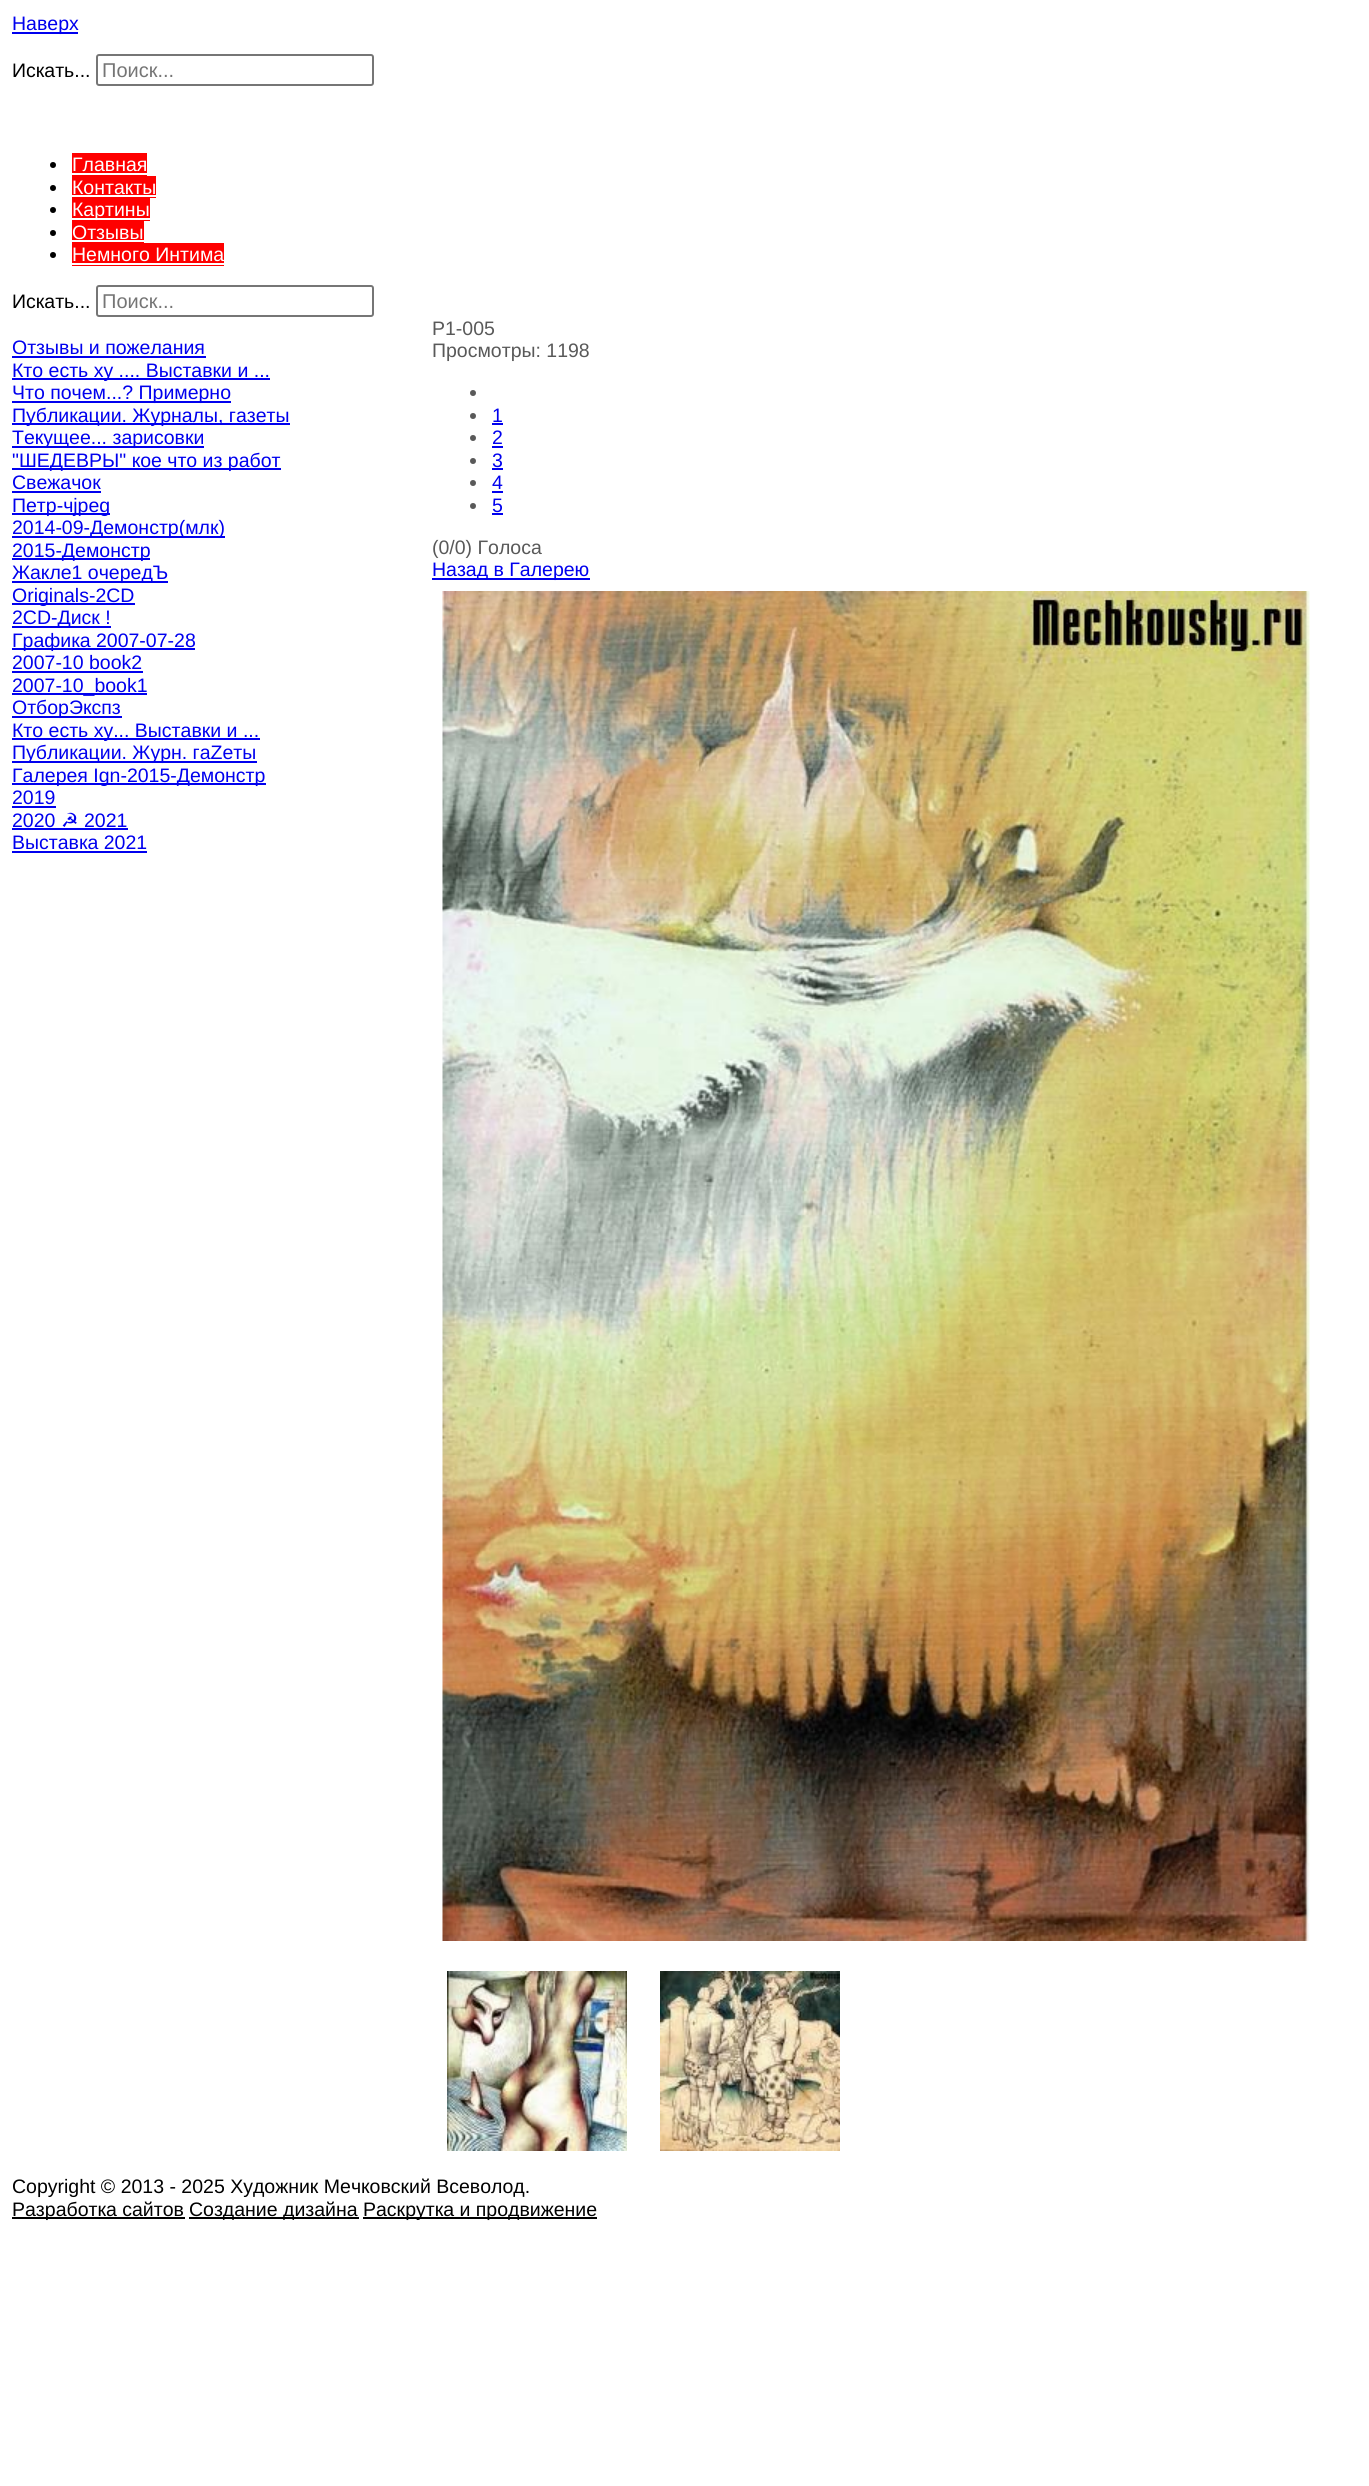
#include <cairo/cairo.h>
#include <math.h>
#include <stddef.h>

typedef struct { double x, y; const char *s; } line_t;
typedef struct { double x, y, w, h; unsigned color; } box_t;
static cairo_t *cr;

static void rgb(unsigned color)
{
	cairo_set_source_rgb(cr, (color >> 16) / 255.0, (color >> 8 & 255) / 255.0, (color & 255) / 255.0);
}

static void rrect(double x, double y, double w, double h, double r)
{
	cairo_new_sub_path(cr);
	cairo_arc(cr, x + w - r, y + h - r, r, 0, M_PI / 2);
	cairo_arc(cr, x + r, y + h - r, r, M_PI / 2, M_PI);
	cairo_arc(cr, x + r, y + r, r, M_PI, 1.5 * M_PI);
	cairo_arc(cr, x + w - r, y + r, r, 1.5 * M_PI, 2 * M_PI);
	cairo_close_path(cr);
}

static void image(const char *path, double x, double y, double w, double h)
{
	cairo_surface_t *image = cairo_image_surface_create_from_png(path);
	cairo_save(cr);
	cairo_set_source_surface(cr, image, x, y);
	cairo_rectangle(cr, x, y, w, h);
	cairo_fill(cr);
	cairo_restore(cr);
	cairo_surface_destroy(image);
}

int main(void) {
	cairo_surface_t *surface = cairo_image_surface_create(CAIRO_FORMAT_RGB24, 1369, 2486);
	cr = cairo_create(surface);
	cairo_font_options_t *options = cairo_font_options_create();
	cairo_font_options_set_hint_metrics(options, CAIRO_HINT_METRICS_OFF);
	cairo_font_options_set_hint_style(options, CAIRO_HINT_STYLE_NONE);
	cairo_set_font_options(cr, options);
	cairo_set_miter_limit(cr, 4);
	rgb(0xffffff);
	cairo_paint(cr);
	rgb(0x0000ee);
	cairo_rectangle(cr, 12, 32, 66, 2);
	cairo_fill(cr);
	rrect(97, 55, 276, 30, 2);
	rgb(0x767676);
	cairo_stroke(cr);
	rgb(0x000000);
	cairo_arc(cr, 53, 165, 3, 0, 2 * M_PI);
	cairo_fill(cr);
	rgb(0xfe0000);
	cairo_rectangle(cr, 72, 153, 75, 23);
	cairo_fill(cr);
	rgb(0xffffff);
	cairo_rectangle(cr, 72, 173, 75, 2);
	cairo_fill(cr);
	rgb(0x000000);
	cairo_arc(cr, 53, 188, 3, 0, 2 * M_PI);
	cairo_fill(cr);
	rgb(0xfe0000);
	cairo_rectangle(cr, 72, 176, 84, 22);
	cairo_fill(cr);
	rgb(0xffffff);
	cairo_rectangle(cr, 72, 195, 84, 2);
	cairo_fill(cr);
	rgb(0x000000);
	cairo_arc(cr, 53, 210, 3, 0, 2 * M_PI);
	cairo_fill(cr);
	rgb(0xfe0000);
	cairo_rectangle(cr, 72, 198, 78, 23);
	cairo_fill(cr);
	rgb(0xffffff);
	cairo_rectangle(cr, 72, 218, 78, 2);
	cairo_fill(cr);
	rgb(0x000000);
	cairo_arc(cr, 53, 233, 3, 0, 2 * M_PI);
	cairo_fill(cr);
	rgb(0xfe0000);
	cairo_rectangle(cr, 72, 221, 72, 22);
	cairo_fill(cr);
	rgb(0xffffff);
	cairo_rectangle(cr, 72, 240, 72, 2);
	cairo_fill(cr);
	rgb(0x000000);
	cairo_arc(cr, 53, 255, 3, 0, 2 * M_PI);
	cairo_fill(cr);
	rgb(0xfe0000);
	cairo_rectangle(cr, 72, 243, 152, 23);
	cairo_fill(cr);
	rgb(0xffffff);
	cairo_rectangle(cr, 72, 263, 152, 2);
	cairo_fill(cr);
	rrect(97, 286, 276, 30, 2);
	rgb(0x767676);
	cairo_stroke(cr);
	{
		static const box_t items[] = {
			{12, 356, 194, 2, 0x0000ee},
			{12, 378, 258, 2, 0x0000ee},
			{12, 401, 219, 2, 0x0000ee},
			{12, 423, 278, 2, 0x0000ee},
			{12, 446, 192, 2, 0x0000ee},
			{12, 468, 269, 2, 0x0000ee},
			{12, 491, 89, 2, 0x0000ee},
			{12, 513, 98, 2, 0x0000ee},
			{12, 536, 213, 2, 0x0000ee},
			{12, 558, 138, 2, 0x0000ee},
			{12, 581, 156, 2, 0x0000ee},
			{12, 603, 123, 2, 0x0000ee},
			{12, 626, 99, 2, 0x0000ee},
			{12, 648, 183, 2, 0x0000ee},
			{12, 671, 131, 2, 0x0000ee},
			{12, 693, 135, 2, 0x0000ee},
			{12, 716, 110, 2, 0x0000ee},
			{12, 738, 248, 2, 0x0000ee},
			{12, 761, 245, 2, 0x0000ee},
			{12, 783, 254, 2, 0x0000ee},
			{12, 806, 44, 2, 0x0000ee},
			{12, 828, 116, 2, 0x0000ee},
			{12, 851, 135, 2, 0x0000ee},
		};
		for (size_t i = 0; i < sizeof items / sizeof *items; i++) {
			rgb(items[i].color);
			cairo_rectangle(cr, items[i].x, items[i].y, items[i].w, items[i].h);
			cairo_fill(cr);
		}
	}
	rgb(0x595959);
	cairo_arc(cr, 473, 393, 3, 0, 2 * M_PI);
	cairo_fill(cr);
	cairo_arc(cr, 473, 416, 3, 0, 2 * M_PI);
	cairo_fill(cr);
	rgb(0x0000ee);
	cairo_rectangle(cr, 492, 423, 11, 2);
	cairo_fill(cr);
	rgb(0x595959);
	cairo_arc(cr, 473, 438, 3, 0, 2 * M_PI);
	cairo_fill(cr);
	rgb(0x0000ee);
	cairo_rectangle(cr, 492, 446, 11, 2);
	cairo_fill(cr);
	rgb(0x595959);
	cairo_arc(cr, 473, 461, 3, 0, 2 * M_PI);
	cairo_fill(cr);
	rgb(0x0000ee);
	cairo_rectangle(cr, 492, 468, 11, 2);
	cairo_fill(cr);
	rgb(0x595959);
	cairo_arc(cr, 473, 483, 3, 0, 2 * M_PI);
	cairo_fill(cr);
	rgb(0x0000ee);
	cairo_rectangle(cr, 492, 491, 11, 2);
	cairo_fill(cr);
	rgb(0x595959);
	cairo_arc(cr, 473, 506, 3, 0, 2 * M_PI);
	cairo_fill(cr);
	rgb(0x0000ee);
	cairo_rectangle(cr, 492, 513, 11, 2);
	cairo_fill(cr);
	cairo_rectangle(cr, 432, 578, 158, 2);
	cairo_fill(cr);
	image("img/1.png", 442, 591, 868, 1350);
	image("img/2.png", 447, 1971, 180, 180);
	image("img/3.png", 660, 1971, 180, 180);
	{
		static const box_t items[] = {
			{12, 2217, 173, 2, 0x000000},
			{189, 2217, 170, 2, 0x000000},
			{363, 2217, 234, 2, 0x000000},
		};
		for (size_t i = 0; i < sizeof items / sizeof *items; i++) {
			rgb(items[i].color);
			cairo_rectangle(cr, items[i].x, items[i].y, items[i].w, items[i].h);
			cairo_fill(cr);
		}
	}
	cairo_select_font_face(cr, "Liberation Sans", CAIRO_FONT_SLANT_NORMAL, CAIRO_FONT_WEIGHT_NORMAL);
	cairo_set_font_size(cr, 19.5);
	rgb(0x0000ee);
	cairo_move_to(cr, 12, 30);
	cairo_show_text(cr, "Наверх");
	rgb(0x000000);
	cairo_move_to(cr, 12, 77);
	cairo_show_text(cr, "Искать...");
	cairo_set_font_size(cr, 20);
	rgb(0x757575);
	cairo_move_to(cr, 102, 77);
	cairo_show_text(cr, "Поиск...");
	cairo_set_font_size(cr, 19.5);
	rgb(0xffffff);
	{
		static const line_t items[] = {
			{72, 171, "Главная"},
			{72, 194, "Контакты"},
			{72, 216, "Картины"},
			{72, 239, "Отзывы"},
			{72, 261, "Немного Интима"},
		};
		for (size_t i = 0; i < sizeof items / sizeof *items; i++) {
			cairo_move_to(cr, items[i].x, items[i].y);
			cairo_show_text(cr, items[i].s);
		}
	}
	rgb(0x000000);
	cairo_move_to(cr, 12, 308);
	cairo_show_text(cr, "Искать...");
	cairo_set_font_size(cr, 20);
	rgb(0x757575);
	cairo_move_to(cr, 102, 308);
	cairo_show_text(cr, "Поиск...");
	cairo_set_font_size(cr, 19.5);
	rgb(0x0000ee);
	{
		static const line_t items[] = {
			{12, 354, "Отзывы и пожелания"},
			{12, 377, "Кто есть ху .... Выставки и ..."},
			{12, 399, "Что почем...? Примерно"},
			{12, 422, "Публикации. Журналы, газеты"},
			{12, 444, "Текущее... зарисовки"},
			{12, 467, "\"ШЕДЕВРЫ\" кое что из работ"},
			{12, 489, "Свежачок"},
			{12, 512, "Петр-чjpeg"},
			{12, 534, "2014-09-Демонстр(млк)"},
			{12, 557, "2015-Демонстр"},
			{12, 579, "Жакле1 очередЪ"},
			{12, 602, "Originals-2CD"},
			{12, 624, "2CD-Диск !"},
			{12, 647, "Графика 2007-07-28"},
			{12, 669, "2007-10 book2"},
			{12, 692, "2007-10_book1"},
			{12, 714, "ОтборЭкспз"},
			{12, 737, "Кто есть ху... Выставки и ..."},
			{12, 759, "Публикации. Журн. гаZеты"},
			{12, 782, "Галерея Ign-2015-Демонстр"},
			{12, 804, "2019"},
			{12, 827, "2020"},
		};
		for (size_t i = 0; i < sizeof items / sizeof *items; i++) {
			cairo_move_to(cr, items[i].x, items[i].y);
			cairo_show_text(cr, items[i].s);
		}
	}
	cairo_select_font_face(cr, "DejaVu Sans", CAIRO_FONT_SLANT_NORMAL, CAIRO_FONT_WEIGHT_NORMAL);
	cairo_move_to(cr, 61, 827);
	cairo_show_text(cr, "☭");
	cairo_select_font_face(cr, "Liberation Sans", CAIRO_FONT_SLANT_NORMAL, CAIRO_FONT_WEIGHT_NORMAL);
	cairo_move_to(cr, 84, 827);
	cairo_show_text(cr, "2021");
	cairo_move_to(cr, 12, 849);
	cairo_show_text(cr, "Выставка 2021");
	rgb(0x595959);
	cairo_move_to(cr, 432, 335);
	cairo_show_text(cr, "P1-005");
	cairo_move_to(cr, 432, 357);
	cairo_show_text(cr, "Просмотры: 1198");
	rgb(0x0000ee);
	{
		static const line_t items[] = {
			{492, 422, "1"},
			{492, 444, "2"},
			{492, 467, "3"},
			{492, 489, "4"},
			{492, 512, "5"},
		};
		for (size_t i = 0; i < sizeof items / sizeof *items; i++) {
			cairo_move_to(cr, items[i].x, items[i].y);
			cairo_show_text(cr, items[i].s);
		}
	}
	rgb(0x595959);
	cairo_move_to(cr, 432, 554);
	cairo_show_text(cr, "(0/0) Голоса");
	rgb(0x0000ee);
	cairo_move_to(cr, 432, 576);
	cairo_show_text(cr, "Назад в Галерею");
	rgb(0x000000);
	{
		static const line_t items[] = {
			{12, 2193, "Copyright © 2013 - 2025 Художник Мечковский Всеволод."},
			{12, 2216, "Разработка сайтов"},
			{189, 2216, "Создание дизайна"},
			{363, 2216, "Раскрутка и продвижение"},
		};
		for (size_t i = 0; i < sizeof items / sizeof *items; i++) {
			cairo_move_to(cr, items[i].x, items[i].y);
			cairo_show_text(cr, items[i].s);
		}
	}
	cairo_surface_write_to_png(surface, "page.png");
	cairo_font_options_destroy(options);
	cairo_destroy(cr);
	cairo_surface_destroy(surface);
	return 0;
}
